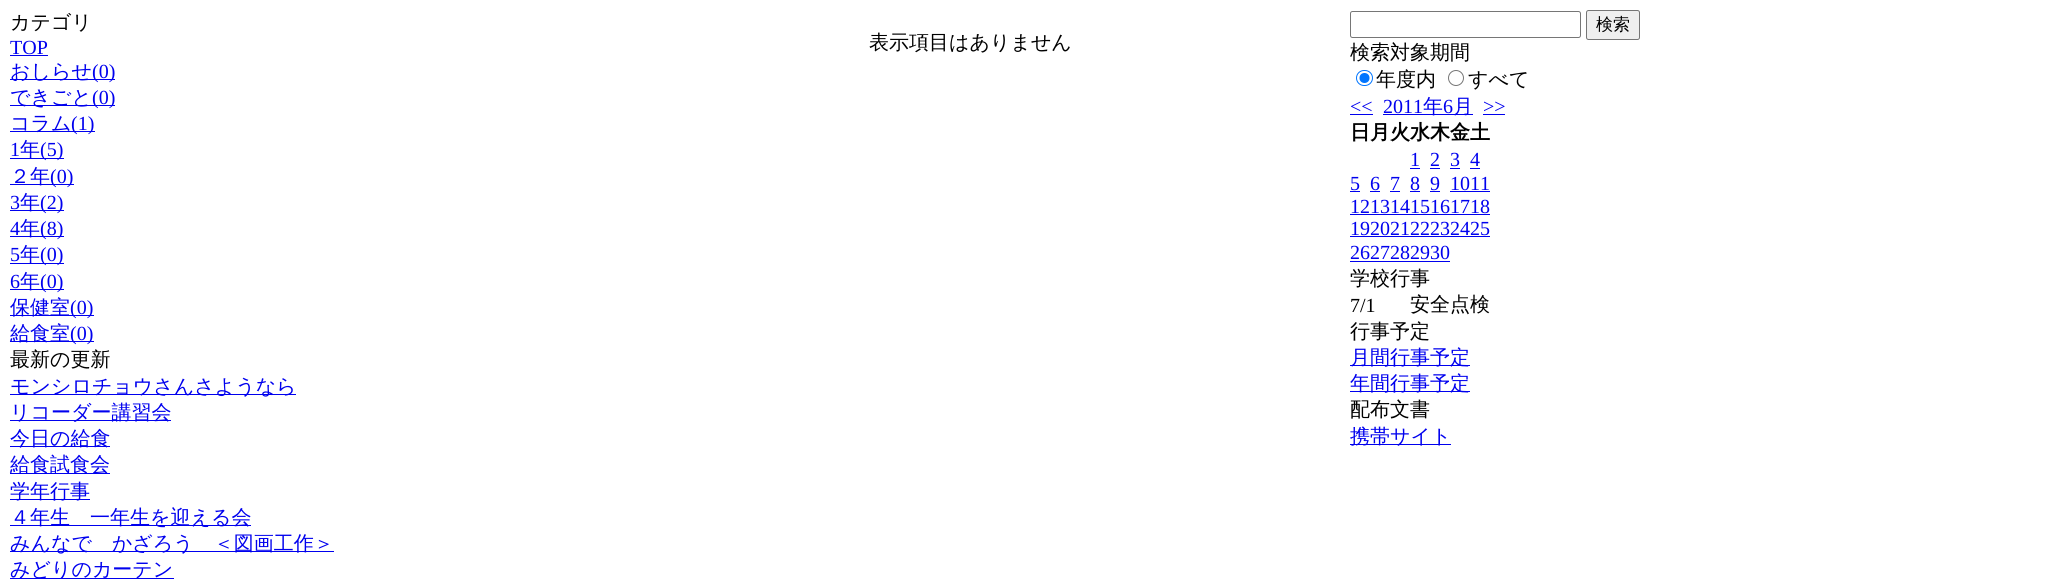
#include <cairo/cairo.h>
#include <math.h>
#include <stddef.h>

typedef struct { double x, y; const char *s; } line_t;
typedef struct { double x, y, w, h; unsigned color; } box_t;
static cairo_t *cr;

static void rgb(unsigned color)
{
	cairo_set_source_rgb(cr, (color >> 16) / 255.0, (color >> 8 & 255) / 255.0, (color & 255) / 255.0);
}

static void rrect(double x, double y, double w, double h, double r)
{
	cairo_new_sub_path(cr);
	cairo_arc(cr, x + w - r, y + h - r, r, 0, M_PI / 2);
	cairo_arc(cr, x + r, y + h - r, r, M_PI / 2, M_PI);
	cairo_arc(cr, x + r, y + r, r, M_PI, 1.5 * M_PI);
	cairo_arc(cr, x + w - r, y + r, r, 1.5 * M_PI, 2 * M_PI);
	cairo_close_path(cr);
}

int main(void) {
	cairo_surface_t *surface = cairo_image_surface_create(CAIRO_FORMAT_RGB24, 2047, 579);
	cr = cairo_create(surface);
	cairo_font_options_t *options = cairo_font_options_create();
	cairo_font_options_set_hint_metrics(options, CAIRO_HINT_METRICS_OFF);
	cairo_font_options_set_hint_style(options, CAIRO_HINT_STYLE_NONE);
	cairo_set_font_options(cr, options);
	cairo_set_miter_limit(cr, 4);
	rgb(0xffffff);
	cairo_paint(cr);
	{
		static const box_t items[] = {
			{10, 55, 38, 1, 0x0000ee},
			{10, 79, 105, 1, 0x0000ee},
			{10, 105, 105, 1, 0x0000ee},
			{10, 131, 85, 1, 0x0000ee},
			{10, 158, 54, 1, 0x0000ee},
			{10, 184, 64, 1, 0x0000ee},
			{10, 210, 54, 1, 0x0000ee},
			{10, 236, 54, 1, 0x0000ee},
			{10, 263, 54, 1, 0x0000ee},
			{10, 289, 54, 1, 0x0000ee},
			{10, 315, 84, 1, 0x0000ee},
			{10, 341, 84, 1, 0x0000ee},
			{10, 394, 286, 1, 0x0000ee},
			{10, 420, 161, 1, 0x0000ee},
			{10, 446, 100, 1, 0x0000ee},
			{10, 473, 100, 1, 0x0000ee},
			{10, 499, 80, 1, 0x0000ee},
			{10, 525, 241, 1, 0x0000ee},
			{10, 551, 324, 1, 0x0000ee},
			{10, 578, 164, 1, 0x0000ee},
		};
		for (size_t i = 0; i < sizeof items / sizeof *items; i++) {
			rgb(items[i].color);
			cairo_rectangle(cr, items[i].x, items[i].y, items[i].w, items[i].h);
			cairo_fill(cr);
		}
	}
	rrect(1350.5, 11.5, 230, 26, 2);
	rgb(0x767676);
	cairo_set_line_width(cr, 1);
	cairo_stroke(cr);
	rgb(0xefefef);
	rrect(1586.5, 10.5, 53, 29, 2);
	cairo_fill_preserve(cr);
	rgb(0x767676);
	cairo_stroke(cr);
	rrect(1356.5, 70.5, 16, 15, 7.5);
	rgb(0x0075ff);
	cairo_stroke(cr);
	cairo_arc(cr, 1364.5, 78, 5, 0, 2 * M_PI);
	cairo_fill(cr);
	cairo_arc(cr, 1456, 78, 7.5, 0, 2 * M_PI);
	rgb(0x767676);
	cairo_stroke(cr);
	{
		static const box_t items[] = {
			{1350, 114, 23, 1, 0x0000ee},
			{1383, 114, 90, 1, 0x0000ee},
			{1483, 114, 22, 1, 0x0000ee},
			{1410, 168, 10, 1, 0x0000ee},
			{1430, 168, 10, 1, 0x0000ee},
			{1450, 168, 10, 1, 0x0000ee},
			{1470, 168, 10, 1, 0x0000ee},
			{1350, 191, 10, 1, 0x0000ee},
			{1370, 191, 10, 1, 0x0000ee},
			{1390, 191, 10, 1, 0x0000ee},
			{1410, 191, 10, 1, 0x0000ee},
			{1430, 191, 10, 1, 0x0000ee},
			{1450, 191, 40, 1, 0x0000ee},
			{1350, 214, 140, 1, 0x0000ee},
			{1350, 236, 140, 1, 0x0000ee},
			{1350, 261, 100, 1, 0x0000ee},
			{1350, 365, 120, 1, 0x0000ee},
			{1350, 391, 120, 1, 0x0000ee},
			{1350, 444, 101, 1, 0x0000ee},
		};
		for (size_t i = 0; i < sizeof items / sizeof *items; i++) {
			rgb(items[i].color);
			cairo_rectangle(cr, items[i].x, items[i].y, items[i].w, items[i].h);
			cairo_fill(cr);
		}
	}
	cairo_select_font_face(cr, "WenQuanYi Zen Hei Medium", CAIRO_FONT_SLANT_NORMAL, CAIRO_FONT_WEIGHT_NORMAL);
	cairo_set_font_size(cr, 20);
	rgb(0x000000);
	cairo_move_to(cr, 10, 29);
	cairo_show_text(cr, "カテゴリ");
	cairo_select_font_face(cr, "Liberation Serif", CAIRO_FONT_SLANT_NORMAL, CAIRO_FONT_WEIGHT_NORMAL);
	rgb(0x0000ee);
	cairo_move_to(cr, 10, 54);
	cairo_show_text(cr, "TOP");
	cairo_select_font_face(cr, "WenQuanYi Zen Hei Medium", CAIRO_FONT_SLANT_NORMAL, CAIRO_FONT_WEIGHT_NORMAL);
	cairo_move_to(cr, 10, 78);
	cairo_show_text(cr, "おしらせ");
	cairo_select_font_face(cr, "Liberation Serif", CAIRO_FONT_SLANT_NORMAL, CAIRO_FONT_WEIGHT_NORMAL);
	cairo_move_to(cr, 92, 78);
	cairo_show_text(cr, "(0)");
	cairo_select_font_face(cr, "WenQuanYi Zen Hei Medium", CAIRO_FONT_SLANT_NORMAL, CAIRO_FONT_WEIGHT_NORMAL);
	cairo_move_to(cr, 10, 104);
	cairo_show_text(cr, "できごと");
	cairo_select_font_face(cr, "Liberation Serif", CAIRO_FONT_SLANT_NORMAL, CAIRO_FONT_WEIGHT_NORMAL);
	cairo_move_to(cr, 92, 104);
	cairo_show_text(cr, "(0)");
	cairo_select_font_face(cr, "WenQuanYi Zen Hei Medium", CAIRO_FONT_SLANT_NORMAL, CAIRO_FONT_WEIGHT_NORMAL);
	cairo_move_to(cr, 10, 130);
	cairo_show_text(cr, "コラム");
	cairo_select_font_face(cr, "Liberation Serif", CAIRO_FONT_SLANT_NORMAL, CAIRO_FONT_WEIGHT_NORMAL);
	cairo_move_to(cr, 71, 130);
	cairo_show_text(cr, "(1)");
	cairo_move_to(cr, 10, 156);
	cairo_show_text(cr, "1");
	cairo_select_font_face(cr, "WenQuanYi Zen Hei Medium", CAIRO_FONT_SLANT_NORMAL, CAIRO_FONT_WEIGHT_NORMAL);
	cairo_move_to(cr, 20, 156);
	cairo_show_text(cr, "年");
	cairo_select_font_face(cr, "Liberation Serif", CAIRO_FONT_SLANT_NORMAL, CAIRO_FONT_WEIGHT_NORMAL);
	cairo_move_to(cr, 40, 156);
	cairo_show_text(cr, "(5)");
	cairo_select_font_face(cr, "WenQuanYi Zen Hei Medium", CAIRO_FONT_SLANT_NORMAL, CAIRO_FONT_WEIGHT_NORMAL);
	cairo_move_to(cr, 10, 183);
	cairo_show_text(cr, "２年");
	cairo_select_font_face(cr, "Liberation Serif", CAIRO_FONT_SLANT_NORMAL, CAIRO_FONT_WEIGHT_NORMAL);
	cairo_move_to(cr, 50, 183);
	cairo_show_text(cr, "(0)");
	cairo_move_to(cr, 10, 209);
	cairo_show_text(cr, "3");
	cairo_select_font_face(cr, "WenQuanYi Zen Hei Medium", CAIRO_FONT_SLANT_NORMAL, CAIRO_FONT_WEIGHT_NORMAL);
	cairo_move_to(cr, 20, 209);
	cairo_show_text(cr, "年");
	cairo_select_font_face(cr, "Liberation Serif", CAIRO_FONT_SLANT_NORMAL, CAIRO_FONT_WEIGHT_NORMAL);
	cairo_move_to(cr, 40, 209);
	cairo_show_text(cr, "(2)");
	cairo_move_to(cr, 10, 235);
	cairo_show_text(cr, "4");
	cairo_select_font_face(cr, "WenQuanYi Zen Hei Medium", CAIRO_FONT_SLANT_NORMAL, CAIRO_FONT_WEIGHT_NORMAL);
	cairo_move_to(cr, 20, 235);
	cairo_show_text(cr, "年");
	cairo_select_font_face(cr, "Liberation Serif", CAIRO_FONT_SLANT_NORMAL, CAIRO_FONT_WEIGHT_NORMAL);
	cairo_move_to(cr, 40, 235);
	cairo_show_text(cr, "(8)");
	cairo_move_to(cr, 10, 261);
	cairo_show_text(cr, "5");
	cairo_select_font_face(cr, "WenQuanYi Zen Hei Medium", CAIRO_FONT_SLANT_NORMAL, CAIRO_FONT_WEIGHT_NORMAL);
	cairo_move_to(cr, 20, 261);
	cairo_show_text(cr, "年");
	cairo_select_font_face(cr, "Liberation Serif", CAIRO_FONT_SLANT_NORMAL, CAIRO_FONT_WEIGHT_NORMAL);
	cairo_move_to(cr, 40, 261);
	cairo_show_text(cr, "(0)");
	cairo_move_to(cr, 10, 288);
	cairo_show_text(cr, "6");
	cairo_select_font_face(cr, "WenQuanYi Zen Hei Medium", CAIRO_FONT_SLANT_NORMAL, CAIRO_FONT_WEIGHT_NORMAL);
	cairo_move_to(cr, 20, 288);
	cairo_show_text(cr, "年");
	cairo_select_font_face(cr, "Liberation Serif", CAIRO_FONT_SLANT_NORMAL, CAIRO_FONT_WEIGHT_NORMAL);
	cairo_move_to(cr, 40, 288);
	cairo_show_text(cr, "(0)");
	cairo_select_font_face(cr, "WenQuanYi Zen Hei Medium", CAIRO_FONT_SLANT_NORMAL, CAIRO_FONT_WEIGHT_NORMAL);
	cairo_move_to(cr, 10, 314);
	cairo_show_text(cr, "保健室");
	cairo_select_font_face(cr, "Liberation Serif", CAIRO_FONT_SLANT_NORMAL, CAIRO_FONT_WEIGHT_NORMAL);
	cairo_move_to(cr, 70, 314);
	cairo_show_text(cr, "(0)");
	cairo_select_font_face(cr, "WenQuanYi Zen Hei Medium", CAIRO_FONT_SLANT_NORMAL, CAIRO_FONT_WEIGHT_NORMAL);
	cairo_move_to(cr, 10, 340);
	cairo_show_text(cr, "給食室");
	cairo_select_font_face(cr, "Liberation Serif", CAIRO_FONT_SLANT_NORMAL, CAIRO_FONT_WEIGHT_NORMAL);
	cairo_move_to(cr, 70, 340);
	cairo_show_text(cr, "(0)");
	cairo_select_font_face(cr, "WenQuanYi Zen Hei Medium", CAIRO_FONT_SLANT_NORMAL, CAIRO_FONT_WEIGHT_NORMAL);
	rgb(0x000000);
	cairo_move_to(cr, 10, 366);
	cairo_show_text(cr, "最新の更新");
	rgb(0x0000ee);
	{
		static const line_t items[] = {
			{10, 393, "モンシロチョウさんさようなら"},
			{10, 419, "リコーダー講習会"},
			{10, 445, "今日の給食"},
			{10, 471, "給食試食会"},
			{10, 498, "学年行事"},
			{10, 524, "４年生　一年生を迎える会"},
			{10, 550, "みんなで　かざろう　＜図画工作＞"},
			{10, 576, "みどりのカーテン"},
		};
		for (size_t i = 0; i < sizeof items / sizeof *items; i++) {
			cairo_move_to(cr, items[i].x, items[i].y);
			cairo_show_text(cr, items[i].s);
		}
	}
	rgb(0x000000);
	cairo_move_to(cr, 869, 49);
	cairo_show_text(cr, "表示項目はありません");
	cairo_set_font_size(cr, 17);
	cairo_move_to(cr, 1596, 30);
	cairo_show_text(cr, "検索");
	cairo_set_font_size(cr, 20);
	{
		static const line_t items[] = {
			{1350, 59, "検索対象期間"},
			{1376, 86, "年度内"},
			{1468, 86, "すべて"},
		};
		for (size_t i = 0; i < sizeof items / sizeof *items; i++) {
			cairo_move_to(cr, items[i].x, items[i].y);
			cairo_show_text(cr, items[i].s);
		}
	}
	cairo_select_font_face(cr, "Liberation Serif", CAIRO_FONT_SLANT_NORMAL, CAIRO_FONT_WEIGHT_NORMAL);
	rgb(0x0000ee);
	cairo_move_to(cr, 1350, 113);
	cairo_show_text(cr, "<<");
	cairo_move_to(cr, 1383, 113);
	cairo_show_text(cr, "2011");
	cairo_select_font_face(cr, "WenQuanYi Zen Hei Medium", CAIRO_FONT_SLANT_NORMAL, CAIRO_FONT_WEIGHT_NORMAL);
	cairo_move_to(cr, 1423, 113);
	cairo_show_text(cr, "年");
	cairo_select_font_face(cr, "Liberation Serif", CAIRO_FONT_SLANT_NORMAL, CAIRO_FONT_WEIGHT_NORMAL);
	cairo_move_to(cr, 1443, 113);
	cairo_show_text(cr, "6");
	cairo_select_font_face(cr, "WenQuanYi Zen Hei Medium", CAIRO_FONT_SLANT_NORMAL, CAIRO_FONT_WEIGHT_NORMAL);
	cairo_move_to(cr, 1453, 113);
	cairo_show_text(cr, "月");
	cairo_select_font_face(cr, "Liberation Serif", CAIRO_FONT_SLANT_NORMAL, CAIRO_FONT_WEIGHT_NORMAL);
	cairo_move_to(cr, 1483, 113);
	cairo_show_text(cr, ">>");
	cairo_select_font_face(cr, "WenQuanYi Zen Hei", CAIRO_FONT_SLANT_NORMAL, CAIRO_FONT_WEIGHT_BOLD);
	rgb(0x000000);
	cairo_move_to(cr, 1350, 139);
	cairo_show_text(cr, "日月火水木金土");
	cairo_select_font_face(cr, "Liberation Serif", CAIRO_FONT_SLANT_NORMAL, CAIRO_FONT_WEIGHT_NORMAL);
	rgb(0x0000ee);
	{
		static const line_t items[] = {
			{1410, 166, "1"},
			{1430, 166, "2"},
			{1450, 166, "3"},
			{1470, 166, "4"},
			{1350, 190, "5"},
			{1370, 190, "6"},
			{1390, 190, "7"},
			{1410, 190, "8"},
			{1430, 190, "9"},
			{1450, 190, "1011"},
			{1350, 213, "12131415161718"},
			{1350, 235, "19202122232425"},
			{1350, 259, "2627282930"},
		};
		for (size_t i = 0; i < sizeof items / sizeof *items; i++) {
			cairo_move_to(cr, items[i].x, items[i].y);
			cairo_show_text(cr, items[i].s);
		}
	}
	cairo_select_font_face(cr, "WenQuanYi Zen Hei Medium", CAIRO_FONT_SLANT_NORMAL, CAIRO_FONT_WEIGHT_NORMAL);
	rgb(0x000000);
	cairo_move_to(cr, 1350, 285);
	cairo_show_text(cr, "学校行事");
	cairo_select_font_face(cr, "Liberation Serif", CAIRO_FONT_SLANT_NORMAL, CAIRO_FONT_WEIGHT_NORMAL);
	cairo_move_to(cr, 1350, 312);
	cairo_show_text(cr, "7/1");
	cairo_select_font_face(cr, "WenQuanYi Zen Hei Medium", CAIRO_FONT_SLANT_NORMAL, CAIRO_FONT_WEIGHT_NORMAL);
	cairo_move_to(cr, 1410, 311);
	cairo_show_text(cr, "安全点検");
	cairo_move_to(cr, 1350, 338);
	cairo_show_text(cr, "行事予定");
	rgb(0x0000ee);
	cairo_move_to(cr, 1350, 364);
	cairo_show_text(cr, "月間行事予定");
	cairo_move_to(cr, 1350, 390);
	cairo_show_text(cr, "年間行事予定");
	rgb(0x000000);
	cairo_move_to(cr, 1350, 416);
	cairo_show_text(cr, "配布文書");
	rgb(0x0000ee);
	cairo_move_to(cr, 1350, 443);
	cairo_show_text(cr, "携帯サイト");
	cairo_surface_write_to_png(surface, "page.png");
	cairo_font_options_destroy(options);
	cairo_destroy(cr);
	cairo_surface_destroy(surface);
	return 0;
}
